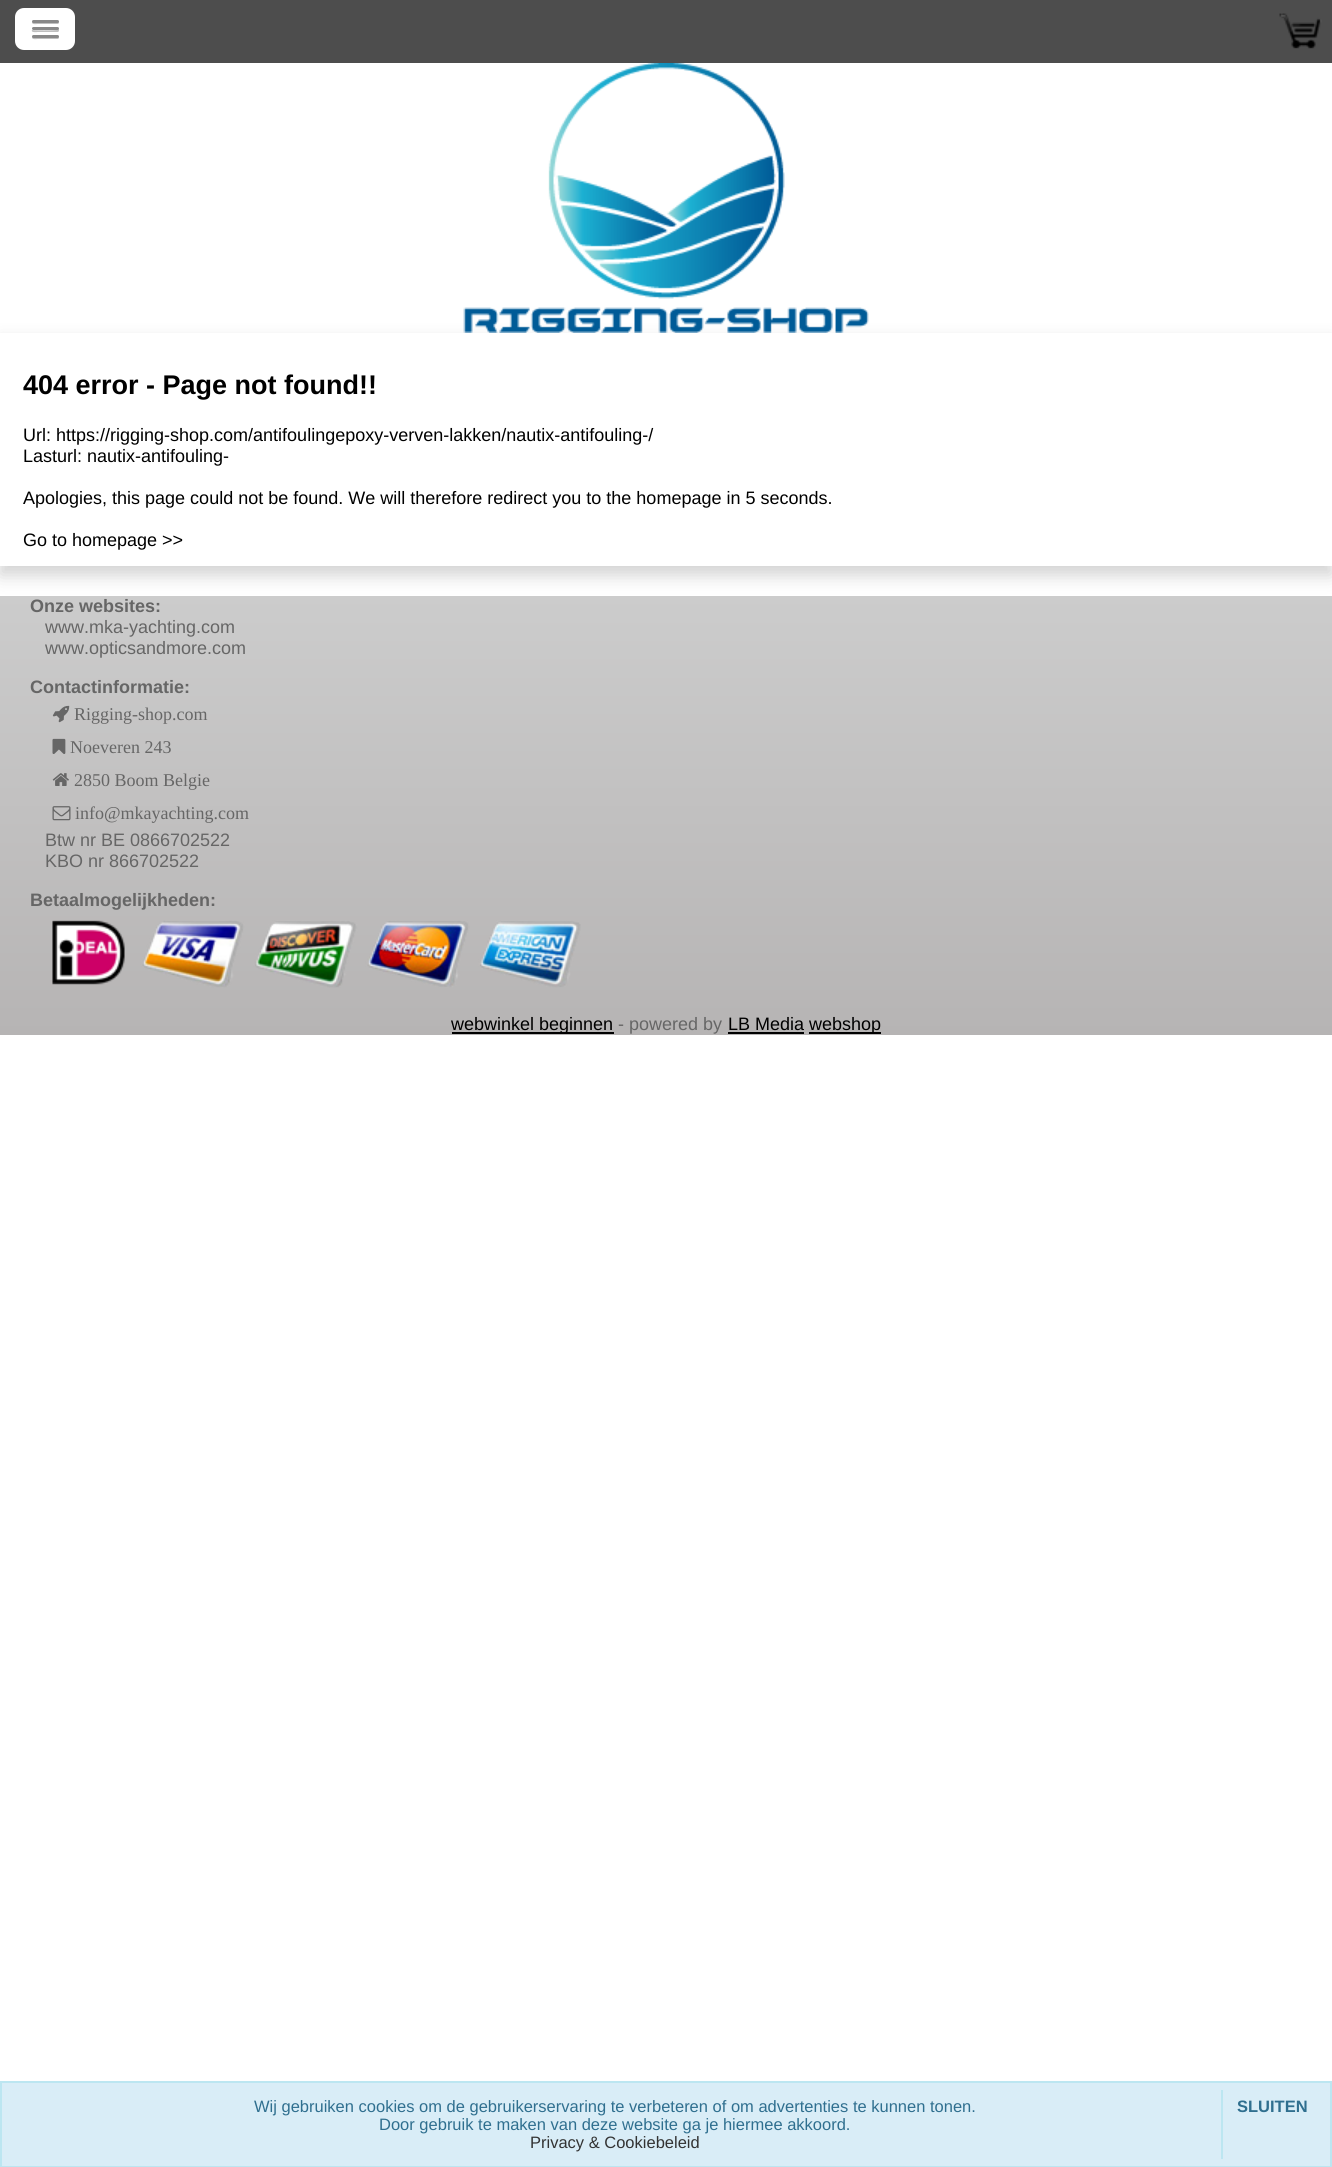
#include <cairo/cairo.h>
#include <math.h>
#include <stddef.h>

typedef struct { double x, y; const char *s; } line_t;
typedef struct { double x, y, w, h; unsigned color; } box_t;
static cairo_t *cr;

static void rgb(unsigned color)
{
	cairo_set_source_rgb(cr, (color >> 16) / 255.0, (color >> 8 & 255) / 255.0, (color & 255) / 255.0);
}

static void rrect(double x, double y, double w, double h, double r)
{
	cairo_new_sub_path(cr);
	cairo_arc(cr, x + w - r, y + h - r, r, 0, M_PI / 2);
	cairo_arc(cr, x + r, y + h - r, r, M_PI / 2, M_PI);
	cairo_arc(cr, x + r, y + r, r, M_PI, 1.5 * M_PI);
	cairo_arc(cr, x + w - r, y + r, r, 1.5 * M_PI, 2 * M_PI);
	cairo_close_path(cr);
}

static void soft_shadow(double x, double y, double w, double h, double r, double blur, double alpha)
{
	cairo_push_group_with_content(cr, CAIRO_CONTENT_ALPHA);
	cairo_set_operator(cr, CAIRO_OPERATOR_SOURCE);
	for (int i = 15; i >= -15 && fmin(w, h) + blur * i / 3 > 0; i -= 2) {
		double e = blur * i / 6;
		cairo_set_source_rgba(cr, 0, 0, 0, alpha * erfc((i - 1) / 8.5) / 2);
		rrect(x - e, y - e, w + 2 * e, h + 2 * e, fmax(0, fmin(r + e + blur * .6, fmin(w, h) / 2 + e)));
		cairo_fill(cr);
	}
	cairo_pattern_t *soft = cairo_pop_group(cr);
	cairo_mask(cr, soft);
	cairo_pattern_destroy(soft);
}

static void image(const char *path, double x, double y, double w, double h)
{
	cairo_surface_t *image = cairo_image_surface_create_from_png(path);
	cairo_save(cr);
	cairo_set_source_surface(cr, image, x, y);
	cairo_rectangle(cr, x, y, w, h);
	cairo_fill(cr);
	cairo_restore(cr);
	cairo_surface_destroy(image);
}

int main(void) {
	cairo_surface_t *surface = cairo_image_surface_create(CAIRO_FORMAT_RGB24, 1332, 2167);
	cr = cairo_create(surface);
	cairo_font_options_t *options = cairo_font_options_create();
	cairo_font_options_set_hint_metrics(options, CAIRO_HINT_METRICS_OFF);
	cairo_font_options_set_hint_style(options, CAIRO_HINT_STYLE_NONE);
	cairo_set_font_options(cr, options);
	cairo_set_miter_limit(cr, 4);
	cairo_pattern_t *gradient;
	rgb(0xffffff);
	cairo_paint(cr);
	rgb(0x4d4d4d);
	cairo_rectangle(cr, 0, 0, 1332, 63);
	cairo_fill(cr);
	rgb(0xffffff);
	rrect(16, 9, 58, 40, 8);
	cairo_fill_preserve(cr);
	cairo_stroke(cr);
	rgb(0xbfbfbf);
	cairo_new_path(cr);
	cairo_move_to(cr, 32, 22);
	cairo_curve_to(cr, 31.5, 25, 37, 24, 37.5, 24);
	cairo_line_to(cr, 57.5, 24);
	cairo_curve_to(cr, 59, 24, 59.5, 22, 58.5, 21.5);
	cairo_line_to(cr, 57.5, 22.5);
	cairo_curve_to(cr, 56, 23, 32.5, 22.5, 32, 22);
	cairo_close_path(cr);
	cairo_fill(cr);
	rgb(0x888888);
	rrect(32, 20, 27, 3, 1.5);
	cairo_fill(cr);
	rgb(0xbfbfbf);
	cairo_new_path(cr);
	cairo_move_to(cr, 32, 30);
	cairo_curve_to(cr, 30.5, 33, 37.5, 32, 37.5, 32);
	cairo_line_to(cr, 58, 32);
	cairo_curve_to(cr, 59, 31.5, 59.5, 30, 58.5, 29);
	cairo_line_to(cr, 57, 30);
	cairo_curve_to(cr, 55, 30.5, 33, 30.5, 32, 30);
	cairo_close_path(cr);
	cairo_fill(cr);
	rgb(0x888888);
	rrect(32, 27, 27, 3, 1.5);
	cairo_fill(cr);
	rgb(0xbfbfbf);
	cairo_new_path(cr);
	cairo_move_to(cr, 32, 37);
	cairo_curve_to(cr, 31.5, 40, 37, 39, 37.5, 39);
	cairo_line_to(cr, 57.5, 39);
	cairo_curve_to(cr, 59, 39, 59.5, 37, 58.5, 36.5);
	cairo_line_to(cr, 57.5, 37.5);
	cairo_curve_to(cr, 56, 38, 32.5, 37.5, 32, 37);
	cairo_close_path(cr);
	cairo_fill(cr);
	rgb(0x888888);
	rrect(32, 35, 27, 3, 1.5);
	cairo_fill(cr);
	image("img/1.png", 1279, 13, 43, 36);
	rgb(0x000000);
	soft_shadow(0, 342, 1332, 233, 0, 9, 0.18);
	image("img/2.png", 463, 63, 406, 270);
	rgb(0xffffff);
	cairo_rectangle(cr, 0, 333, 1332, 233);
	cairo_fill(cr);
	gradient = cairo_pattern_create_linear(666, 595, 666, 1035);
	cairo_pattern_add_color_stop_rgba(gradient, 0, 0.8, 0.8, 0.8, 1);
	cairo_pattern_add_color_stop_rgba(gradient, 1, 0.714, 0.706, 0.706, 1);
	cairo_set_source(cr, gradient);
	cairo_pattern_destroy(gradient);
	cairo_rectangle(cr, 0, 596, 1332, 439);
	cairo_fill(cr);
	image("img/3.png", 52, 705, 18, 18);
	image("img/4.png", 52, 738, 14, 16);
	image("img/5.png", 52, 773, 17, 13);
	image("img/6.png", 52, 806, 19, 15);
	image("img/7.png", 52, 920, 529, 68);
	{
		static const box_t items[] = {
			{452, 1032, 162, 2, 0x000000},
			{728, 1032, 76, 2, 0x000000},
			{809, 1032, 72, 2, 0x000000},
		};
		for (size_t i = 0; i < sizeof items / sizeof *items; i++) {
			rgb(items[i].color);
			cairo_rectangle(cr, items[i].x, items[i].y, items[i].w, items[i].h);
			cairo_fill(cr);
		}
	}
	rgb(0xd9edf7);
	cairo_rectangle(cr, 1, 2082, 1330, 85);
	cairo_fill_preserve(cr);
	rgb(0xbce6f1);
	cairo_stroke(cr);
	cairo_rectangle(cr, 1221, 2090, 2, 69);
	cairo_fill(cr);
	cairo_select_font_face(cr, "Liberation Sans", CAIRO_FONT_SLANT_NORMAL, CAIRO_FONT_WEIGHT_BOLD);
	cairo_set_font_size(cr, 27);
	rgb(0x000000);
	cairo_move_to(cr, 23, 394);
	cairo_show_text(cr, "404 error - Page not found!!");
	cairo_select_font_face(cr, "Liberation Sans", CAIRO_FONT_SLANT_NORMAL, CAIRO_FONT_WEIGHT_NORMAL);
	cairo_set_font_size(cr, 18);
	{
		static const line_t items[] = {
			{23, 441, "Url: https://rigging-shop.com/antifoulingepoxy-verven-lakken/nautix-antifouling-/"},
			{23, 462, "Lasturl: nautix-antifouling-"},
			{23, 504, "Apologies, this page could not be found. We will therefore redirect you to the homepage in 5 seconds."},
			{23, 546, "Go to homepage >>"},
		};
		for (size_t i = 0; i < sizeof items / sizeof *items; i++) {
			cairo_move_to(cr, items[i].x, items[i].y);
			cairo_show_text(cr, items[i].s);
		}
	}
	cairo_select_font_face(cr, "Liberation Sans", CAIRO_FONT_SLANT_NORMAL, CAIRO_FONT_WEIGHT_BOLD);
	rgb(0x666666);
	cairo_move_to(cr, 30, 612);
	cairo_show_text(cr, "Onze websites:");
	cairo_select_font_face(cr, "Liberation Sans", CAIRO_FONT_SLANT_NORMAL, CAIRO_FONT_WEIGHT_NORMAL);
	cairo_move_to(cr, 45, 633);
	cairo_show_text(cr, "www.mka-yachting.com");
	cairo_move_to(cr, 45, 654);
	cairo_show_text(cr, "www.opticsandmore.com");
	cairo_select_font_face(cr, "Liberation Sans", CAIRO_FONT_SLANT_NORMAL, CAIRO_FONT_WEIGHT_BOLD);
	cairo_move_to(cr, 30, 693);
	cairo_show_text(cr, "Contactinformatie:");
	cairo_select_font_face(cr, "Liberation Serif", CAIRO_FONT_SLANT_NORMAL, CAIRO_FONT_WEIGHT_NORMAL);
	{
		static const line_t items[] = {
			{74, 720, "Rigging-shop.com"},
			{70, 753, "Noeveren 243"},
			{74, 786, "2850 Boom Belgie"},
			{75, 819, "info@mkayachting.com"},
		};
		for (size_t i = 0; i < sizeof items / sizeof *items; i++) {
			cairo_move_to(cr, items[i].x, items[i].y);
			cairo_show_text(cr, items[i].s);
		}
	}
	cairo_select_font_face(cr, "Liberation Sans", CAIRO_FONT_SLANT_NORMAL, CAIRO_FONT_WEIGHT_NORMAL);
	cairo_move_to(cr, 45, 846);
	cairo_show_text(cr, "Btw nr BE 0866702522");
	cairo_move_to(cr, 45, 867);
	cairo_show_text(cr, "KBO nr 866702522");
	cairo_select_font_face(cr, "Liberation Sans", CAIRO_FONT_SLANT_NORMAL, CAIRO_FONT_WEIGHT_BOLD);
	cairo_move_to(cr, 30, 906);
	cairo_show_text(cr, "Betaalmogelijkheden:");
	cairo_select_font_face(cr, "Liberation Sans", CAIRO_FONT_SLANT_NORMAL, CAIRO_FONT_WEIGHT_NORMAL);
	rgb(0x000000);
	cairo_move_to(cr, 451, 1030);
	cairo_show_text(cr, "webwinkel beginnen");
	rgb(0x666666);
	cairo_move_to(cr, 618, 1030);
	cairo_show_text(cr, "- powered by");
	rgb(0x000000);
	cairo_move_to(cr, 728, 1030);
	cairo_show_text(cr, "LB Media");
	cairo_move_to(cr, 809, 1030);
	cairo_show_text(cr, "webshop");
	cairo_set_font_size(cr, 16.5);
	rgb(0x2f6f8f);
	cairo_move_to(cr, 254, 2112);
	cairo_show_text(cr, "Wij gebruiken cookies om de gebruikerservaring te verbeteren of om advertenties te kunnen tonen.");
	cairo_move_to(cr, 379, 2130);
	cairo_show_text(cr, "Door gebruik te maken van deze website ga je hiermee akkoord.");
	rgb(0x333333);
	cairo_move_to(cr, 530, 2148);
	cairo_show_text(cr, "Privacy & Cookiebeleid");
	cairo_select_font_face(cr, "Liberation Sans", CAIRO_FONT_SLANT_NORMAL, CAIRO_FONT_WEIGHT_BOLD);
	rgb(0x2f6f8f);
	cairo_move_to(cr, 1237, 2112);
	cairo_show_text(cr, "SLUITEN");
	cairo_surface_write_to_png(surface, "page.png");
	cairo_font_options_destroy(options);
	cairo_destroy(cr);
	cairo_surface_destroy(surface);
	return 0;
}
